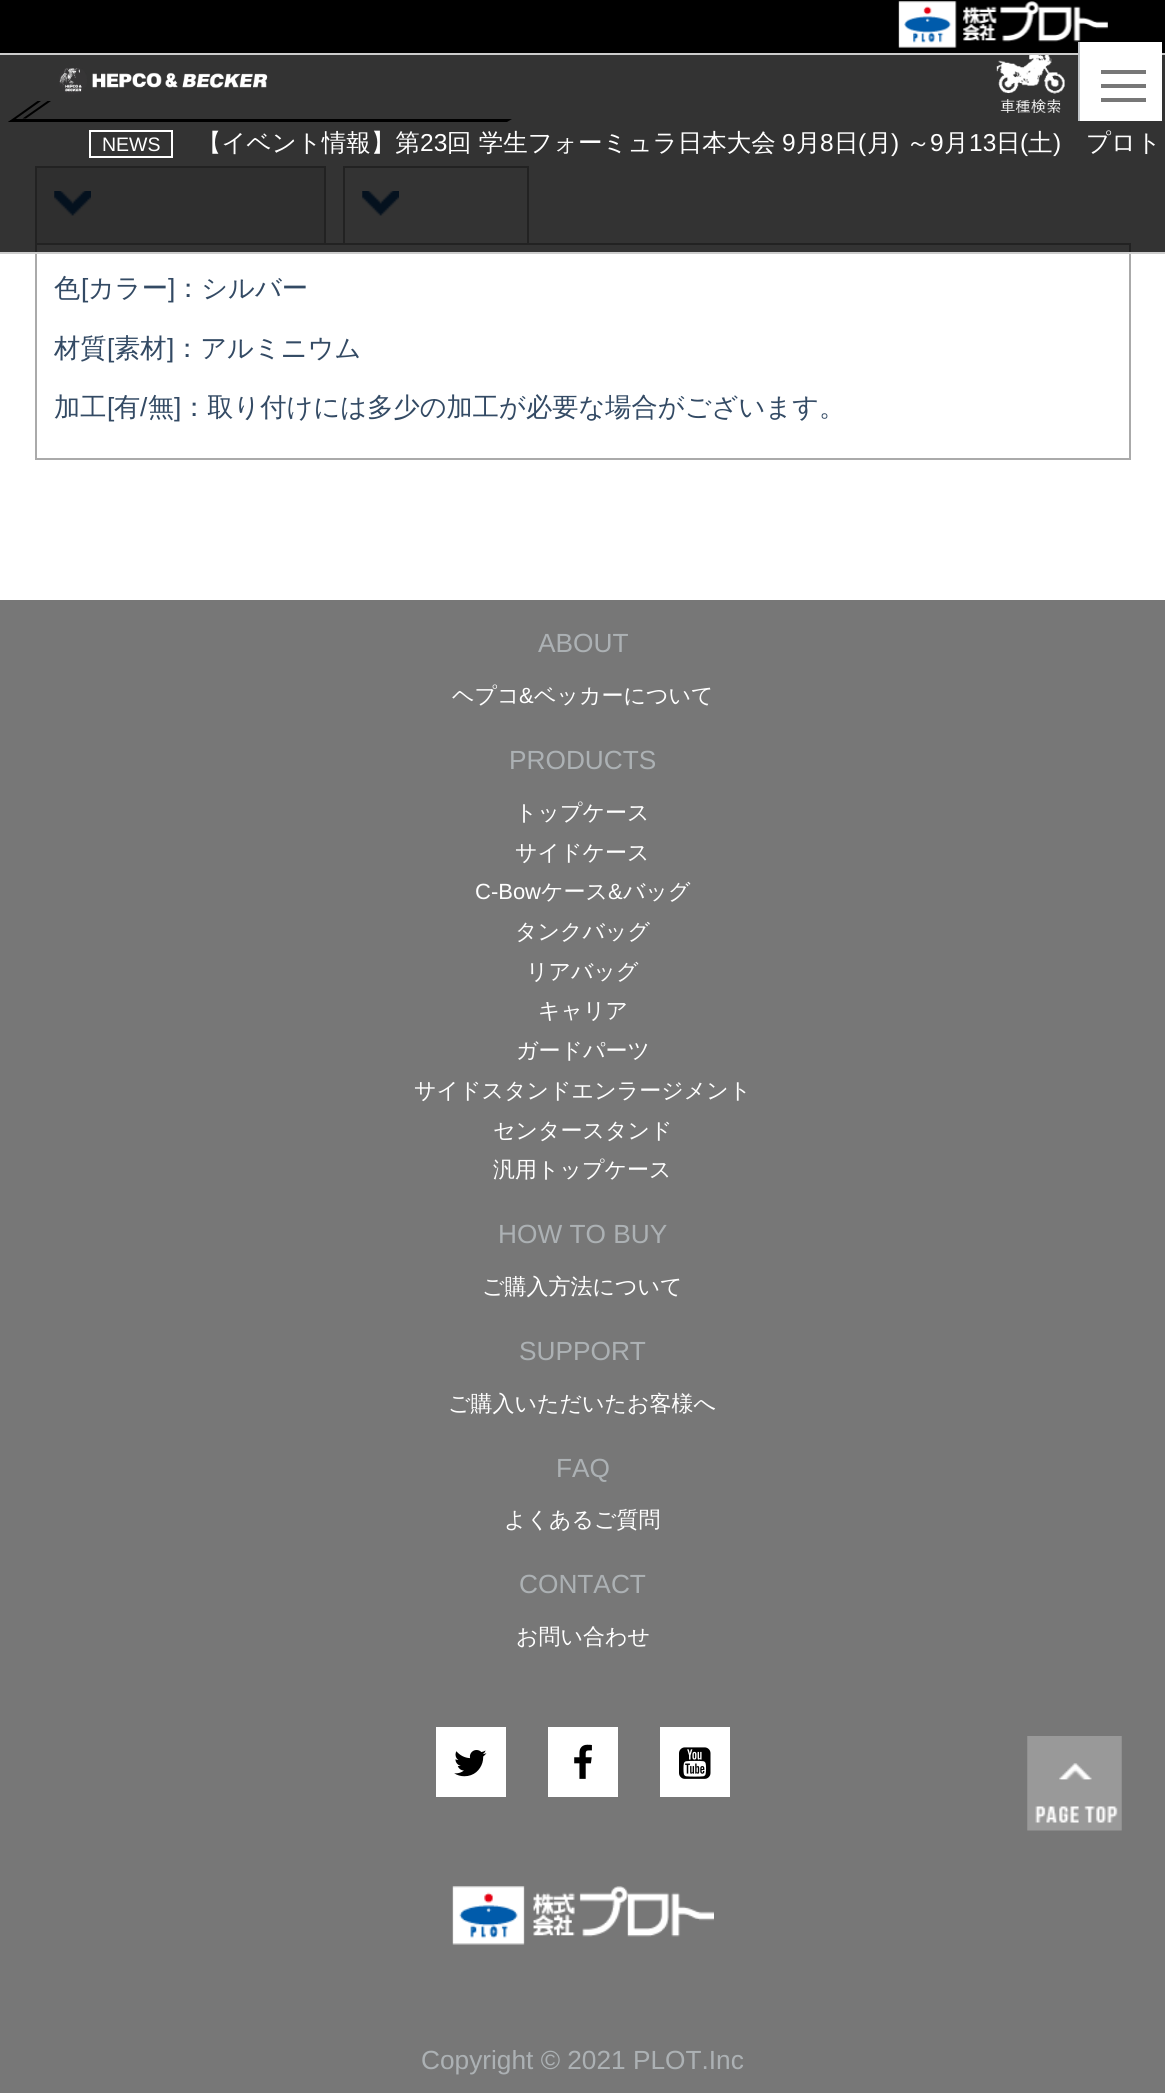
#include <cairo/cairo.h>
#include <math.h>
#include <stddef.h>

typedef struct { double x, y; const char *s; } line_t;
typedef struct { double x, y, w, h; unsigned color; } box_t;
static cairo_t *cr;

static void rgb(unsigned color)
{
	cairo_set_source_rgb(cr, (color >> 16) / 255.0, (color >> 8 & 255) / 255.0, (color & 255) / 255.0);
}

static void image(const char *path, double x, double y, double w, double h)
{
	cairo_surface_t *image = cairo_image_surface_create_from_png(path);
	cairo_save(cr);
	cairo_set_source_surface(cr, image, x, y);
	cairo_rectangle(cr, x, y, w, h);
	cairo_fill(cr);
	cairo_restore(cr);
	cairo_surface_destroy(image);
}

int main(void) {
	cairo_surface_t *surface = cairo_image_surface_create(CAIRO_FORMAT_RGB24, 1165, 2093);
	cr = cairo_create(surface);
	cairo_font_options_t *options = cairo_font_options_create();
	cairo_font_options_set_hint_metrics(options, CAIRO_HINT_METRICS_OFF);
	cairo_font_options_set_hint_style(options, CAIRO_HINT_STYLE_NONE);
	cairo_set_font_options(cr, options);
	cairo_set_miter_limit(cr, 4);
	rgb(0xffffff);
	cairo_paint(cr);
	rgb(0x000000);
	cairo_rectangle(cr, 0, 0, 1165, 53);
	cairo_fill(cr);
	rgb(0xcccccc);
	cairo_rectangle(cr, 0, 53, 1165, 2);
	cairo_fill(cr);
	image("img/1.png", 898, 1, 210, 47);
	rgb(0x000000);
	cairo_new_path(cr);
	cairo_move_to(cr, 13, 119);
	cairo_line_to(cr, 512, 119);
	cairo_line_to(cr, 507, 122);
	cairo_line_to(cr, 8, 122);
	cairo_close_path(cr);
	cairo_fill(cr);
	cairo_new_path(cr);
	cairo_move_to(cr, 37.5, 101);
	cairo_line_to(cr, 41, 101);
	cairo_line_to(cr, 11.5, 122);
	cairo_line_to(cr, 8, 122);
	cairo_close_path(cr);
	cairo_fill(cr);
	cairo_new_path(cr);
	cairo_move_to(cr, 47.5, 101);
	cairo_line_to(cr, 51, 101);
	cairo_line_to(cr, 26, 118.5);
	cairo_line_to(cr, 22.5, 118.5);
	cairo_close_path(cr);
	cairo_fill(cr);
	{
		static const box_t items[] = {
			{37, 168, 287, 75, 0xebebeb},
			{35, 166, 291, 2, 0xaaaaaa},
			{324, 166, 2, 77, 0xaaaaaa},
			{35, 166, 2, 77, 0xaaaaaa},
		};
		for (size_t i = 0; i < sizeof items / sizeof *items; i++) {
			rgb(items[i].color);
			cairo_rectangle(cr, items[i].x, items[i].y, items[i].w, items[i].h);
			cairo_fill(cr);
		}
	}
	image("img/4.png", 54, 191, 37, 25);
	{
		static const box_t items[] = {
			{343, 166, 186, 2, 0xaaaaaa},
			{527, 166, 2, 77, 0xaaaaaa},
			{343, 166, 2, 77, 0xaaaaaa},
		};
		for (size_t i = 0; i < sizeof items / sizeof *items; i++) {
			rgb(items[i].color);
			cairo_rectangle(cr, items[i].x, items[i].y, items[i].w, items[i].h);
			cairo_fill(cr);
		}
	}
	image("img/5.png", 362, 191, 37, 25);
	cairo_rectangle(cr, 36, 244, 1094, 215);
	cairo_stroke(cr);
	cairo_set_source_rgba(cr, 0, 0, 0, 0.8);
	cairo_rectangle(cr, 0, 55, 1165, 197);
	cairo_fill(cr);
	rgb(0xffffff);
	cairo_rectangle(cr, 1080, 42, 82, 79);
	cairo_fill(cr);
	rgb(0xc1c5c9);
	cairo_rectangle(cr, 1078, 42, 2, 79);
	cairo_fill(cr);
	rgb(0x777777);
	cairo_rectangle(cr, 1101, 84, 45, 4);
	cairo_fill(cr);
	cairo_rectangle(cr, 1101, 70, 45, 4);
	cairo_fill(cr);
	cairo_rectangle(cr, 1101, 98, 45, 4);
	cairo_fill(cr);
	rgb(0xcccccc);
	cairo_rectangle(cr, 0, 252, 1165, 2);
	cairo_fill(cr);
	image("img/2.png", 59, 68, 209, 27);
	image("img/3.png", 996, 55, 69, 58);
	cairo_rectangle(cr, 90, 131, 82, 26);
	rgb(0xffffff);
	cairo_stroke(cr);
	rgb(0x777777);
	cairo_rectangle(cr, 0, 600, 1165, 1493);
	cairo_fill(cr);
	rgb(0xffffff);
	cairo_rectangle(cr, 436, 1727, 70, 70);
	cairo_fill(cr);
	image("img/6.png", 454, 1750, 33, 27);
	cairo_rectangle(cr, 548, 1727, 70, 70);
	cairo_fill(cr);
	image("img/7.png", 574, 1744, 18, 35);
	cairo_rectangle(cr, 660, 1727, 70, 70);
	cairo_fill(cr);
	image("img/8.png", 679, 1747, 32, 32);
	image("img/9.png", 452, 1886, 262, 59);
	image("img/10.png", 1027, 1736, 95, 95);
	cairo_select_font_face(cr, "Liberation Sans", CAIRO_FONT_SLANT_NORMAL, CAIRO_FONT_WEIGHT_NORMAL);
	cairo_set_font_size(cr, 19.5);
	cairo_move_to(cr, 102, 151);
	cairo_show_text(cr, "NEWS");
	cairo_select_font_face(cr, "WenQuanYi Zen Hei Medium", CAIRO_FONT_SLANT_NORMAL, CAIRO_FONT_WEIGHT_NORMAL);
	cairo_set_font_size(cr, 24.5);
	cairo_move_to(cr, 197, 151);
	cairo_show_text(cr, "【イベント情報】第");
	cairo_select_font_face(cr, "Liberation Sans", CAIRO_FONT_SLANT_NORMAL, CAIRO_FONT_WEIGHT_NORMAL);
	cairo_move_to(cr, 420, 151);
	cairo_show_text(cr, "23");
	cairo_select_font_face(cr, "WenQuanYi Zen Hei Medium", CAIRO_FONT_SLANT_NORMAL, CAIRO_FONT_WEIGHT_NORMAL);
	cairo_move_to(cr, 447, 151);
	cairo_show_text(cr, "回 学生フォーミュラ日本大会");
	cairo_select_font_face(cr, "Liberation Sans", CAIRO_FONT_SLANT_NORMAL, CAIRO_FONT_WEIGHT_NORMAL);
	cairo_move_to(cr, 782, 151);
	cairo_show_text(cr, "9");
	cairo_select_font_face(cr, "WenQuanYi Zen Hei Medium", CAIRO_FONT_SLANT_NORMAL, CAIRO_FONT_WEIGHT_NORMAL);
	cairo_move_to(cr, 796, 151);
	cairo_show_text(cr, "月");
	cairo_select_font_face(cr, "Liberation Sans", CAIRO_FONT_SLANT_NORMAL, CAIRO_FONT_WEIGHT_NORMAL);
	cairo_move_to(cr, 820, 151);
	cairo_show_text(cr, "8");
	cairo_select_font_face(cr, "WenQuanYi Zen Hei Medium", CAIRO_FONT_SLANT_NORMAL, CAIRO_FONT_WEIGHT_NORMAL);
	cairo_move_to(cr, 834, 151);
	cairo_show_text(cr, "日");
	cairo_select_font_face(cr, "Liberation Sans", CAIRO_FONT_SLANT_NORMAL, CAIRO_FONT_WEIGHT_NORMAL);
	cairo_move_to(cr, 858, 151);
	cairo_show_text(cr, "(");
	cairo_select_font_face(cr, "WenQuanYi Zen Hei Medium", CAIRO_FONT_SLANT_NORMAL, CAIRO_FONT_WEIGHT_NORMAL);
	cairo_move_to(cr, 867, 151);
	cairo_show_text(cr, "月");
	cairo_select_font_face(cr, "Liberation Sans", CAIRO_FONT_SLANT_NORMAL, CAIRO_FONT_WEIGHT_NORMAL);
	cairo_move_to(cr, 891, 151);
	cairo_show_text(cr, ")");
	cairo_select_font_face(cr, "WenQuanYi Zen Hei Medium", CAIRO_FONT_SLANT_NORMAL, CAIRO_FONT_WEIGHT_NORMAL);
	cairo_move_to(cr, 906, 151);
	cairo_show_text(cr, "～");
	cairo_select_font_face(cr, "Liberation Sans", CAIRO_FONT_SLANT_NORMAL, CAIRO_FONT_WEIGHT_NORMAL);
	cairo_move_to(cr, 930, 151);
	cairo_show_text(cr, "9");
	cairo_select_font_face(cr, "WenQuanYi Zen Hei Medium", CAIRO_FONT_SLANT_NORMAL, CAIRO_FONT_WEIGHT_NORMAL);
	cairo_move_to(cr, 944, 151);
	cairo_show_text(cr, "月");
	cairo_select_font_face(cr, "Liberation Sans", CAIRO_FONT_SLANT_NORMAL, CAIRO_FONT_WEIGHT_NORMAL);
	cairo_move_to(cr, 969, 151);
	cairo_show_text(cr, "13");
	cairo_select_font_face(cr, "WenQuanYi Zen Hei Medium", CAIRO_FONT_SLANT_NORMAL, CAIRO_FONT_WEIGHT_NORMAL);
	cairo_move_to(cr, 996, 151);
	cairo_show_text(cr, "日");
	cairo_select_font_face(cr, "Liberation Sans", CAIRO_FONT_SLANT_NORMAL, CAIRO_FONT_WEIGHT_NORMAL);
	cairo_move_to(cr, 1020, 151);
	cairo_show_text(cr, "(");
	cairo_select_font_face(cr, "WenQuanYi Zen Hei Medium", CAIRO_FONT_SLANT_NORMAL, CAIRO_FONT_WEIGHT_NORMAL);
	cairo_move_to(cr, 1028, 151);
	cairo_show_text(cr, "土");
	cairo_select_font_face(cr, "Liberation Sans", CAIRO_FONT_SLANT_NORMAL, CAIRO_FONT_WEIGHT_NORMAL);
	cairo_move_to(cr, 1053, 151);
	cairo_show_text(cr, ")");
	cairo_select_font_face(cr, "WenQuanYi Zen Hei Medium", CAIRO_FONT_SLANT_NORMAL, CAIRO_FONT_WEIGHT_NORMAL);
	cairo_move_to(cr, 1086, 151);
	cairo_show_text(cr, "プロト");
	cairo_set_font_size(cr, 26.25);
	rgb(0x334a64);
	cairo_move_to(cr, 54, 297);
	cairo_show_text(cr, "色");
	cairo_select_font_face(cr, "Liberation Sans", CAIRO_FONT_SLANT_NORMAL, CAIRO_FONT_WEIGHT_NORMAL);
	cairo_move_to(cr, 81, 297);
	cairo_show_text(cr, "[");
	cairo_select_font_face(cr, "WenQuanYi Zen Hei Medium", CAIRO_FONT_SLANT_NORMAL, CAIRO_FONT_WEIGHT_NORMAL);
	cairo_move_to(cr, 88, 297);
	cairo_show_text(cr, "カラー");
	cairo_select_font_face(cr, "Liberation Sans", CAIRO_FONT_SLANT_NORMAL, CAIRO_FONT_WEIGHT_NORMAL);
	cairo_move_to(cr, 168, 297);
	cairo_show_text(cr, "]");
	cairo_select_font_face(cr, "WenQuanYi Zen Hei Medium", CAIRO_FONT_SLANT_NORMAL, CAIRO_FONT_WEIGHT_NORMAL);
	cairo_move_to(cr, 175, 297);
	cairo_show_text(cr, "：シルバー");
	cairo_move_to(cr, 54, 357);
	cairo_show_text(cr, "材質");
	cairo_select_font_face(cr, "Liberation Sans", CAIRO_FONT_SLANT_NORMAL, CAIRO_FONT_WEIGHT_NORMAL);
	cairo_move_to(cr, 107, 357);
	cairo_show_text(cr, "[");
	cairo_select_font_face(cr, "WenQuanYi Zen Hei Medium", CAIRO_FONT_SLANT_NORMAL, CAIRO_FONT_WEIGHT_NORMAL);
	cairo_move_to(cr, 114, 357);
	cairo_show_text(cr, "素材");
	cairo_select_font_face(cr, "Liberation Sans", CAIRO_FONT_SLANT_NORMAL, CAIRO_FONT_WEIGHT_NORMAL);
	cairo_move_to(cr, 167, 357);
	cairo_show_text(cr, "]");
	cairo_select_font_face(cr, "WenQuanYi Zen Hei Medium", CAIRO_FONT_SLANT_NORMAL, CAIRO_FONT_WEIGHT_NORMAL);
	cairo_move_to(cr, 174, 357);
	cairo_show_text(cr, "：アルミニウム");
	cairo_move_to(cr, 54, 416);
	cairo_show_text(cr, "加工");
	cairo_select_font_face(cr, "Liberation Sans", CAIRO_FONT_SLANT_NORMAL, CAIRO_FONT_WEIGHT_NORMAL);
	cairo_move_to(cr, 107, 416);
	cairo_show_text(cr, "[");
	cairo_select_font_face(cr, "WenQuanYi Zen Hei Medium", CAIRO_FONT_SLANT_NORMAL, CAIRO_FONT_WEIGHT_NORMAL);
	cairo_move_to(cr, 114, 416);
	cairo_show_text(cr, "有");
	cairo_select_font_face(cr, "Liberation Sans", CAIRO_FONT_SLANT_NORMAL, CAIRO_FONT_WEIGHT_NORMAL);
	cairo_move_to(cr, 140, 416);
	cairo_show_text(cr, "/");
	cairo_select_font_face(cr, "WenQuanYi Zen Hei Medium", CAIRO_FONT_SLANT_NORMAL, CAIRO_FONT_WEIGHT_NORMAL);
	cairo_move_to(cr, 148, 416);
	cairo_show_text(cr, "無");
	cairo_select_font_face(cr, "Liberation Sans", CAIRO_FONT_SLANT_NORMAL, CAIRO_FONT_WEIGHT_NORMAL);
	cairo_move_to(cr, 174, 416);
	cairo_show_text(cr, "]");
	cairo_select_font_face(cr, "WenQuanYi Zen Hei Medium", CAIRO_FONT_SLANT_NORMAL, CAIRO_FONT_WEIGHT_NORMAL);
	cairo_move_to(cr, 181, 416);
	cairo_show_text(cr, "：取り付けには多少の加工が必要な場合がございます。");
	cairo_select_font_face(cr, "Liberation Sans", CAIRO_FONT_SLANT_NORMAL, CAIRO_FONT_WEIGHT_NORMAL);
	rgb(0xacb1b4);
	cairo_move_to(cr, 538, 652);
	cairo_show_text(cr, "ABOUT");
	cairo_select_font_face(cr, "WenQuanYi Zen Hei Medium", CAIRO_FONT_SLANT_NORMAL, CAIRO_FONT_WEIGHT_NORMAL);
	cairo_set_font_size(cr, 22);
	rgb(0xffffff);
	cairo_move_to(cr, 452, 703);
	cairo_show_text(cr, "ヘプコ");
	cairo_select_font_face(cr, "Liberation Sans", CAIRO_FONT_SLANT_NORMAL, CAIRO_FONT_WEIGHT_NORMAL);
	cairo_move_to(cr, 519, 703);
	cairo_show_text(cr, "&");
	cairo_select_font_face(cr, "WenQuanYi Zen Hei Medium", CAIRO_FONT_SLANT_NORMAL, CAIRO_FONT_WEIGHT_NORMAL);
	cairo_move_to(cr, 534, 703);
	cairo_show_text(cr, "ベッカーについて");
	cairo_select_font_face(cr, "Liberation Sans", CAIRO_FONT_SLANT_NORMAL, CAIRO_FONT_WEIGHT_NORMAL);
	cairo_set_font_size(cr, 26.25);
	rgb(0xacb1b4);
	cairo_move_to(cr, 509, 769);
	cairo_show_text(cr, "PRODUCTS");
	cairo_select_font_face(cr, "WenQuanYi Zen Hei Medium", CAIRO_FONT_SLANT_NORMAL, CAIRO_FONT_WEIGHT_NORMAL);
	cairo_set_font_size(cr, 22);
	rgb(0xffffff);
	cairo_move_to(cr, 515, 820);
	cairo_show_text(cr, "トップケース");
	cairo_move_to(cr, 515, 860);
	cairo_show_text(cr, "サイドケース");
	cairo_select_font_face(cr, "Liberation Sans", CAIRO_FONT_SLANT_NORMAL, CAIRO_FONT_WEIGHT_NORMAL);
	cairo_move_to(cr, 475, 899);
	cairo_show_text(cr, "C-Bow");
	cairo_select_font_face(cr, "WenQuanYi Zen Hei Medium", CAIRO_FONT_SLANT_NORMAL, CAIRO_FONT_WEIGHT_NORMAL);
	cairo_move_to(cr, 541, 899);
	cairo_show_text(cr, "ケース");
	cairo_select_font_face(cr, "Liberation Sans", CAIRO_FONT_SLANT_NORMAL, CAIRO_FONT_WEIGHT_NORMAL);
	cairo_move_to(cr, 608, 899);
	cairo_show_text(cr, "&");
	cairo_select_font_face(cr, "WenQuanYi Zen Hei Medium", CAIRO_FONT_SLANT_NORMAL, CAIRO_FONT_WEIGHT_NORMAL);
	{
		static const line_t items[] = {
			{623, 899, "バッグ"},
			{515, 939, "タンクバッグ"},
			{526, 979, "リアバッグ"},
			{538, 1018, "キャリア"},
			{516, 1058, "ガードパーツ"},
			{414, 1098, "サイドスタンドエンラージメント"},
			{493, 1138, "センタースタンド"},
			{493, 1177, "汎用トップケース"},
		};
		for (size_t i = 0; i < sizeof items / sizeof *items; i++) {
			cairo_move_to(cr, items[i].x, items[i].y);
			cairo_show_text(cr, items[i].s);
		}
	}
	cairo_select_font_face(cr, "Liberation Sans", CAIRO_FONT_SLANT_NORMAL, CAIRO_FONT_WEIGHT_NORMAL);
	cairo_set_font_size(cr, 26.25);
	rgb(0xacb1b4);
	cairo_move_to(cr, 498, 1243);
	cairo_show_text(cr, "HOW TO BUY");
	cairo_select_font_face(cr, "WenQuanYi Zen Hei Medium", CAIRO_FONT_SLANT_NORMAL, CAIRO_FONT_WEIGHT_NORMAL);
	cairo_set_font_size(cr, 22);
	rgb(0xffffff);
	cairo_move_to(cr, 482, 1294);
	cairo_show_text(cr, "ご購入方法について");
	cairo_select_font_face(cr, "Liberation Sans", CAIRO_FONT_SLANT_NORMAL, CAIRO_FONT_WEIGHT_NORMAL);
	cairo_set_font_size(cr, 26.25);
	rgb(0xacb1b4);
	cairo_move_to(cr, 519, 1360);
	cairo_show_text(cr, "SUPPORT");
	cairo_select_font_face(cr, "WenQuanYi Zen Hei Medium", CAIRO_FONT_SLANT_NORMAL, CAIRO_FONT_WEIGHT_NORMAL);
	cairo_set_font_size(cr, 22);
	rgb(0xffffff);
	cairo_move_to(cr, 448, 1411);
	cairo_show_text(cr, "ご購入いただいたお客様へ");
	cairo_select_font_face(cr, "Liberation Sans", CAIRO_FONT_SLANT_NORMAL, CAIRO_FONT_WEIGHT_NORMAL);
	cairo_set_font_size(cr, 26.25);
	rgb(0xacb1b4);
	cairo_move_to(cr, 556, 1477);
	cairo_show_text(cr, "FAQ");
	cairo_select_font_face(cr, "WenQuanYi Zen Hei Medium", CAIRO_FONT_SLANT_NORMAL, CAIRO_FONT_WEIGHT_NORMAL);
	cairo_set_font_size(cr, 22);
	rgb(0xffffff);
	cairo_move_to(cr, 504, 1527);
	cairo_show_text(cr, "よくあるご質問");
	cairo_select_font_face(cr, "Liberation Sans", CAIRO_FONT_SLANT_NORMAL, CAIRO_FONT_WEIGHT_NORMAL);
	cairo_set_font_size(cr, 26.25);
	rgb(0xacb1b4);
	cairo_move_to(cr, 519, 1593);
	cairo_show_text(cr, "CONTACT");
	cairo_select_font_face(cr, "WenQuanYi Zen Hei Medium", CAIRO_FONT_SLANT_NORMAL, CAIRO_FONT_WEIGHT_NORMAL);
	cairo_set_font_size(cr, 22);
	rgb(0xffffff);
	cairo_move_to(cr, 516, 1644);
	cairo_show_text(cr, "お問い合わせ");
	cairo_select_font_face(cr, "Liberation Sans", CAIRO_FONT_SLANT_NORMAL, CAIRO_FONT_WEIGHT_NORMAL);
	cairo_set_font_size(cr, 26.25);
	rgb(0xacb1b4);
	cairo_move_to(cr, 421, 2069);
	cairo_show_text(cr, "Copyright © 2021 PLOT.Inc");
	cairo_surface_write_to_png(surface, "page.png");
	cairo_font_options_destroy(options);
	cairo_destroy(cr);
	cairo_surface_destroy(surface);
	return 0;
}
